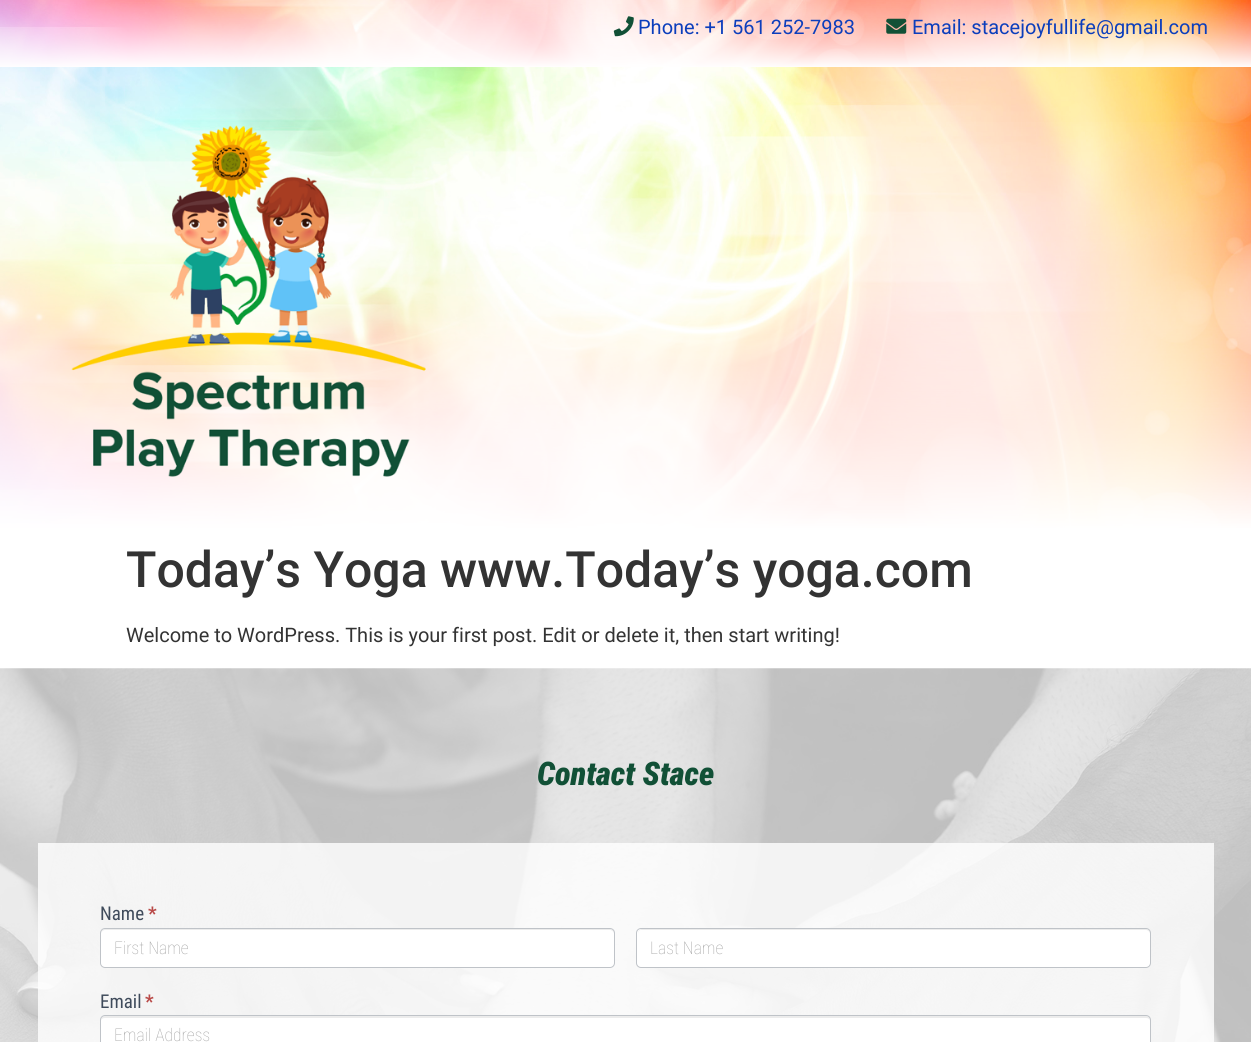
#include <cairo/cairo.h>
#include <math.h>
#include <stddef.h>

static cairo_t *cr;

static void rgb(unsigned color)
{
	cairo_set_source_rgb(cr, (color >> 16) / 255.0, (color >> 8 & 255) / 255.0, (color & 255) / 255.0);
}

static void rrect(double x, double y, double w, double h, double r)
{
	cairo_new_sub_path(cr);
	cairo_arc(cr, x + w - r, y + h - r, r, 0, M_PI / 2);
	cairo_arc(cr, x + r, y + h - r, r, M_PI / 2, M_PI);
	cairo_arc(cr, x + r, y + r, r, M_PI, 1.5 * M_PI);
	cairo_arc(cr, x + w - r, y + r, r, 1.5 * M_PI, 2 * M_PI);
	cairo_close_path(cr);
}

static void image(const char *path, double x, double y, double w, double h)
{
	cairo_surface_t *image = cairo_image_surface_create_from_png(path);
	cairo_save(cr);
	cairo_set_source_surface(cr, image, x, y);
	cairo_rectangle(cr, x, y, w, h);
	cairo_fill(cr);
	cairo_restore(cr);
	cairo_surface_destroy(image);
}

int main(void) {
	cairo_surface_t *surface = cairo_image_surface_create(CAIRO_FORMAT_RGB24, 1251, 1042);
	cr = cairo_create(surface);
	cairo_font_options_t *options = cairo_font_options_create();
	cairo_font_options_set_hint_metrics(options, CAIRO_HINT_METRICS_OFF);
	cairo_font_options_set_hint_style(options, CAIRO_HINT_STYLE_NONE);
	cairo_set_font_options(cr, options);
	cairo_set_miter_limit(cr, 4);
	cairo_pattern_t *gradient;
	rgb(0xffffff);
	cairo_paint(cr);
	image("img/1.png", 0, 0, 1251, 67);
	image("img/2.png", 613, 16, 21, 21);
	image("img/3.png", 886, 18, 21, 16);
	image("img/4.png", 0, 67, 1251, 461);
	gradient = cairo_pattern_create_linear(626, 530, 626, 67);
	cairo_pattern_add_color_stop_rgba(gradient, 0, 1, 1, 1, 1);
	cairo_pattern_add_color_stop_rgba(gradient, 0.9, 1, 1, 1, 0);
	cairo_set_source(cr, gradient);
	cairo_pattern_destroy(gradient);
	cairo_rectangle(cr, 0, 122, 1251, 406);
	cairo_fill(cr);
	image("img/5.png", 71, 125, 355, 352);
	image("img/6.png", 0, 668, 1251, 374);
	cairo_set_source_rgba(cr, 1, 1, 1, 0.8);
	cairo_rectangle(cr, 38, 843, 1176, 199);
	cairo_fill(cr);
	rgb(0xffffff);
	rrect(100, 928, 515, 40, 5);
	cairo_fill(cr);
	rgb(0xececec);
	cairo_new_path(cr);
	cairo_move_to(cr, 105, 930);
	cairo_line_to(cr, 610, 930);
	cairo_curve_to(cr, 612, 930, 614, 932, 614, 934);
	cairo_line_to(cr, 614, 933);
	cairo_curve_to(cr, 614, 931, 612, 929, 610, 929);
	cairo_line_to(cr, 105, 929);
	cairo_curve_to(cr, 103, 929, 101, 931, 101, 933);
	cairo_line_to(cr, 101, 934);
	cairo_curve_to(cr, 101, 932, 103, 930, 105, 930);
	cairo_close_path(cr);
	cairo_fill(cr);
	rrect(100.5, 928.5, 514, 39, 4.5);
	rgb(0xbfc3c8);
	cairo_set_line_width(cr, 1);
	cairo_stroke(cr);
	rgb(0xffffff);
	rrect(636, 928, 515, 40, 5);
	cairo_fill(cr);
	rgb(0xececec);
	cairo_new_path(cr);
	cairo_move_to(cr, 641, 930);
	cairo_line_to(cr, 1146, 930);
	cairo_curve_to(cr, 1148, 930, 1150, 932, 1150, 934);
	cairo_line_to(cr, 1150, 933);
	cairo_curve_to(cr, 1150, 931, 1148, 929, 1146, 929);
	cairo_line_to(cr, 642, 929);
	cairo_curve_to(cr, 640, 929, 638, 931, 638, 933);
	cairo_line_to(cr, 638, 934);
	cairo_curve_to(cr, 638, 932, 639, 930, 641, 930);
	cairo_close_path(cr);
	cairo_fill(cr);
	rrect(636.5, 928.5, 514, 39, 4.5);
	rgb(0xbfc3c8);
	cairo_stroke(cr);
	rgb(0xffffff);
	rrect(100, 1015, 1051, 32, 5);
	cairo_fill(cr);
	rgb(0xececec);
	cairo_new_path(cr);
	cairo_move_to(cr, 105, 1018);
	cairo_line_to(cr, 1146, 1018);
	cairo_curve_to(cr, 1148, 1018, 1150, 1019, 1150, 1021);
	cairo_curve_to(cr, 1150, 1018, 1149, 1016, 1146, 1016);
	cairo_line_to(cr, 105, 1016);
	cairo_curve_to(cr, 102, 1016, 101, 1018, 101, 1021);
	cairo_curve_to(cr, 101, 1019, 103, 1018, 105, 1018);
	cairo_close_path(cr);
	cairo_fill(cr);
	rrect(100.5, 1015.5, 1050, 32, 4.5);
	rgb(0xbfc3c8);
	cairo_stroke(cr);
	cairo_select_font_face(cr, "Roboto", CAIRO_FONT_SLANT_NORMAL, CAIRO_FONT_WEIGHT_NORMAL);
	cairo_set_font_size(cr, 20);
	rgb(0x0c3ebc);
	cairo_move_to(cr, 638, 34);
	cairo_show_text(cr, "Phone: +1 561 252-7983");
	cairo_move_to(cr, 912, 34);
	cairo_show_text(cr, "Email: stacejoyfullife@gmail.com");
	cairo_select_font_face(cr, "Roboto Medium", CAIRO_FONT_SLANT_NORMAL, CAIRO_FONT_WEIGHT_NORMAL);
	cairo_set_font_size(cr, 50);
	rgb(0x333333);
	cairo_move_to(cr, 126, 587);
	cairo_show_text(cr, "Today’s Yoga www.Today’s yoga.com");
	cairo_select_font_face(cr, "Roboto", CAIRO_FONT_SLANT_NORMAL, CAIRO_FONT_WEIGHT_NORMAL);
	cairo_set_font_size(cr, 20);
	cairo_move_to(cr, 126, 642);
	cairo_show_text(cr, "Welcome to WordPress. This is your first post. Edit or delete it, then start writing!");
	cairo_select_font_face(cr, "Roboto Condensed Black", CAIRO_FONT_SLANT_ITALIC, CAIRO_FONT_WEIGHT_NORMAL);
	cairo_set_font_size(cr, 32.5);
	rgb(0x115036);
	cairo_move_to(cr, 537, 785);
	cairo_show_text(cr, "Contact Stace");
	cairo_select_font_face(cr, "Roboto Condensed", CAIRO_FONT_SLANT_NORMAL, CAIRO_FONT_WEIGHT_NORMAL);
	cairo_set_font_size(cr, 19);
	rgb(0x3f4b5b);
	cairo_move_to(cr, 100, 920);
	cairo_show_text(cr, "Name");
	cairo_select_font_face(cr, "Roboto Condensed", CAIRO_FONT_SLANT_NORMAL, CAIRO_FONT_WEIGHT_BOLD);
	rgb(0xb94a48);
	cairo_move_to(cr, 148, 920);
	cairo_show_text(cr, "*");
	cairo_select_font_face(cr, "Roboto Condensed Thin", CAIRO_FONT_SLANT_NORMAL, CAIRO_FONT_WEIGHT_NORMAL);
	cairo_set_font_size(cr, 17.5);
	rgb(0xa1a1a1);
	cairo_move_to(cr, 114, 954);
	cairo_show_text(cr, "First Name");
	cairo_move_to(cr, 650, 954);
	cairo_show_text(cr, "Last Name");
	cairo_select_font_face(cr, "Roboto Condensed", CAIRO_FONT_SLANT_NORMAL, CAIRO_FONT_WEIGHT_NORMAL);
	cairo_set_font_size(cr, 19);
	rgb(0x3f4b5b);
	cairo_move_to(cr, 100, 1008);
	cairo_show_text(cr, "Email");
	cairo_select_font_face(cr, "Roboto Condensed", CAIRO_FONT_SLANT_NORMAL, CAIRO_FONT_WEIGHT_BOLD);
	rgb(0xb94a48);
	cairo_move_to(cr, 145, 1008);
	cairo_show_text(cr, "*");
	cairo_select_font_face(cr, "Roboto Condensed Thin", CAIRO_FONT_SLANT_NORMAL, CAIRO_FONT_WEIGHT_NORMAL);
	cairo_set_font_size(cr, 17.5);
	rgb(0xa1a1a1);
	cairo_move_to(cr, 114, 1041);
	cairo_show_text(cr, "Email Address");
	cairo_surface_write_to_png(surface, "page.png");
	cairo_font_options_destroy(options);
	cairo_destroy(cr);
	cairo_surface_destroy(surface);
	return 0;
}
